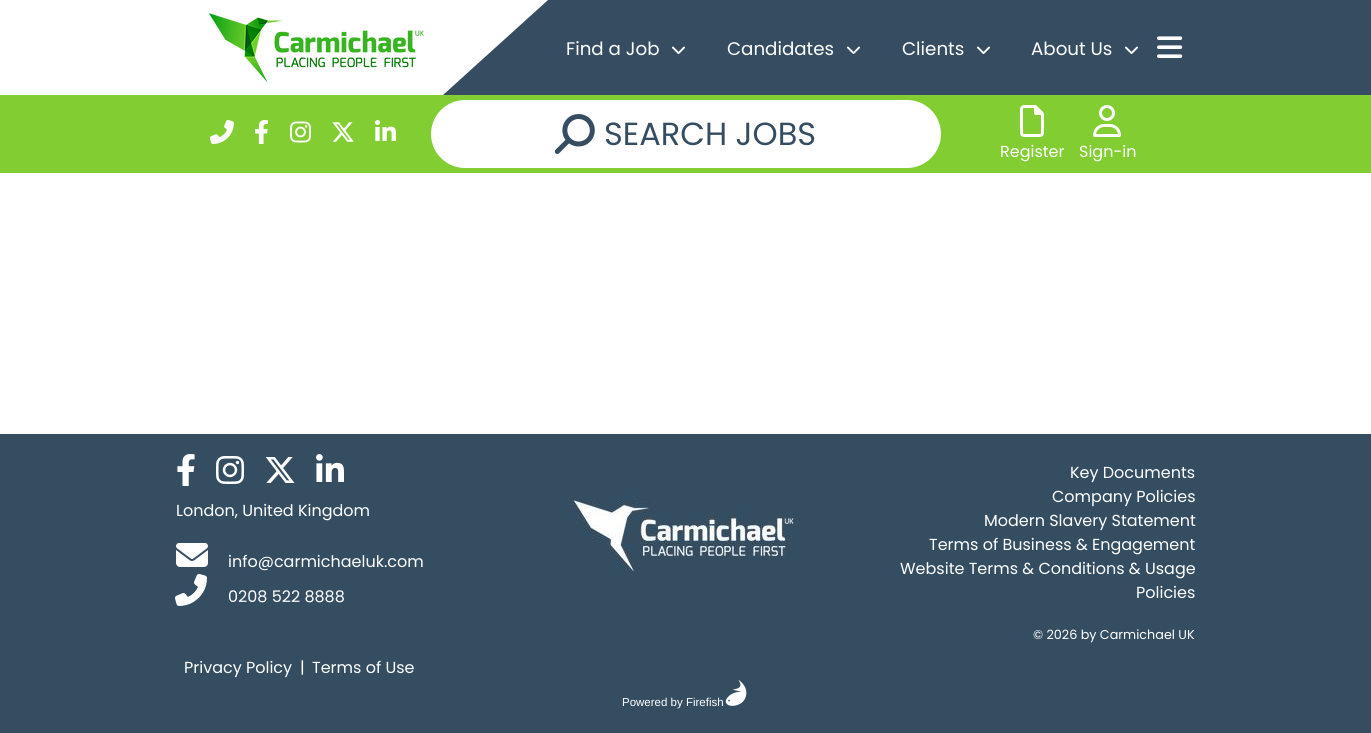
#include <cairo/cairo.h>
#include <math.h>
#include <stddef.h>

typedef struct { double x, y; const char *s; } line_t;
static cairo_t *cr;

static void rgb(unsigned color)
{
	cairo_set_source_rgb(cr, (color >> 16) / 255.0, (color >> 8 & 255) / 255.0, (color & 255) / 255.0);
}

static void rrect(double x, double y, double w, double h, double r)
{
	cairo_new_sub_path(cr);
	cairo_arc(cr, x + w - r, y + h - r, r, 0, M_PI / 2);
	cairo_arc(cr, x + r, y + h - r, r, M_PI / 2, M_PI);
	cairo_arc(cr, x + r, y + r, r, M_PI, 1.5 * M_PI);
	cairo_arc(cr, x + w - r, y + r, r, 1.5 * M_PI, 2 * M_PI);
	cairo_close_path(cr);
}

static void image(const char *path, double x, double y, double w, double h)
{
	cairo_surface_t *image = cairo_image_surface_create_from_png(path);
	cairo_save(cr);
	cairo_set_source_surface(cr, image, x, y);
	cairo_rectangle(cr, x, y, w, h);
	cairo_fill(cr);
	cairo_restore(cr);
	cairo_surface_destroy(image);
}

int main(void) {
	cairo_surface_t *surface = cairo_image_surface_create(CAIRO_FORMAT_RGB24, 1371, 733);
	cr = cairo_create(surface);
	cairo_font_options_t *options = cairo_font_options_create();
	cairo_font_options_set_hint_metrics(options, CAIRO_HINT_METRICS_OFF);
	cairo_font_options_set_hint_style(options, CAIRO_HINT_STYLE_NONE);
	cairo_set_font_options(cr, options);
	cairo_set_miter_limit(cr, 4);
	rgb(0xffffff);
	cairo_paint(cr);
	image("img/1.png", 208, 13, 216, 70);
	rgb(0x364d61);
	cairo_new_path(cr);
	cairo_move_to(cr, 548, 0);
	cairo_line_to(cr, 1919, 0);
	cairo_line_to(cr, 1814, 95);
	cairo_line_to(cr, 443, 95);
	cairo_close_path(cr);
	cairo_fill(cr);
	image("img/2.png", 672, 46, 13, 8);
	image("img/2.png", 847, 46, 13, 8);
	image("img/2.png", 977, 46, 13, 8);
	image("img/2.png", 1125, 46, 13, 8);
	image("img/3.png", 1157, 36, 26, 22);
	rgb(0x82cd32);
	cairo_rectangle(cr, 0, 95, 1371, 78);
	cairo_fill(cr);
	image("img/4.png", 209, 120, 25, 24);
	image("img/5.png", 255, 120, 13, 24);
	image("img/6.png", 290, 121, 21, 22);
	image("img/7.png", 332, 122, 22, 20);
	image("img/8.png", 375, 120, 21, 21);
	rgb(0xffffff);
	rrect(431, 100, 510, 68, 34);
	cairo_fill(cr);
	image("img/9.png", 554, 114, 41, 40);
	image("img/10.png", 1020, 105, 24, 32);
	image("img/11.png", 1093, 105, 28, 32);
	rgb(0x354d61);
	cairo_rectangle(cr, 0, 434, 1371, 299);
	cairo_fill(cr);
	image("img/12.png", 177, 454, 18, 32);
	image("img/13.png", 216, 456, 28, 28);
	image("img/14.png", 265, 457, 30, 26);
	image("img/15.png", 316, 454, 28, 28);
	image("img/16.png", 176, 543, 32, 24);
	image("img/17.png", 175, 574, 32, 32);
	image("img/18.png", 568, 492, 232, 80);
	image("img/19.png", 725, 680, 22, 26);
	cairo_select_font_face(cr, "Poppins", CAIRO_FONT_SLANT_NORMAL, CAIRO_FONT_WEIGHT_NORMAL);
	cairo_set_font_size(cr, 18.25);
	rgb(0xffffff);
	{
		static const line_t items[] = {
			{566, 55, "Find a Job"},
			{727, 55, "Candidates"},
			{902, 55, "Clients"},
			{1031, 55, "About Us"},
		};
		for (size_t i = 0; i < sizeof items / sizeof *items; i++) {
			cairo_move_to(cr, items[i].x, items[i].y);
			cairo_show_text(cr, items[i].s);
		}
	}
	cairo_set_font_size(cr, 32);
	rgb(0x364d61);
	cairo_move_to(cr, 604, 145);
	cairo_show_text(cr, "SEARCH JOBS");
	cairo_set_font_size(cr, 16);
	rgb(0xffffff);
	{
		static const line_t items[] = {
			{1000, 157, "Register"},
			{1079, 157, "Sign-in"},
			{176, 516, "London, United Kingdom"},
			{228, 567, "info@carmichaeluk.com"},
			{228, 602, "0208 522 8888"},
			{1070, 478, "Key Documents"},
			{1052, 502, "Company Policies"},
			{984, 526, "Modern Slavery Statement"},
			{929, 550, "Terms of Business & Engagement"},
			{900, 574, "Website Terms & Conditions & Usage"},
			{1136, 598, "Policies"},
		};
		for (size_t i = 0; i < sizeof items / sizeof *items; i++) {
			cairo_move_to(cr, items[i].x, items[i].y);
			cairo_show_text(cr, items[i].s);
		}
	}
	cairo_set_font_size(cr, 12.75);
	cairo_move_to(cr, 1033, 639);
	cairo_show_text(cr, "© 2026 by Carmichael UK");
	cairo_set_font_size(cr, 16);
	{
		static const line_t items[] = {
			{184, 673, "Privacy Policy"},
			{300, 673, "|"},
			{312, 673, "Terms of Use"},
		};
		for (size_t i = 0; i < sizeof items / sizeof *items; i++) {
			cairo_move_to(cr, items[i].x, items[i].y);
			cairo_show_text(cr, items[i].s);
		}
	}
	cairo_select_font_face(cr, "Liberation Sans", CAIRO_FONT_SLANT_NORMAL, CAIRO_FONT_WEIGHT_NORMAL);
	cairo_set_font_size(cr, 11.5);
	cairo_move_to(cr, 622, 706);
	cairo_show_text(cr, "Powered by Firefish");
	cairo_surface_write_to_png(surface, "page.png");
	cairo_font_options_destroy(options);
	cairo_destroy(cr);
	cairo_surface_destroy(surface);
	return 0;
}
